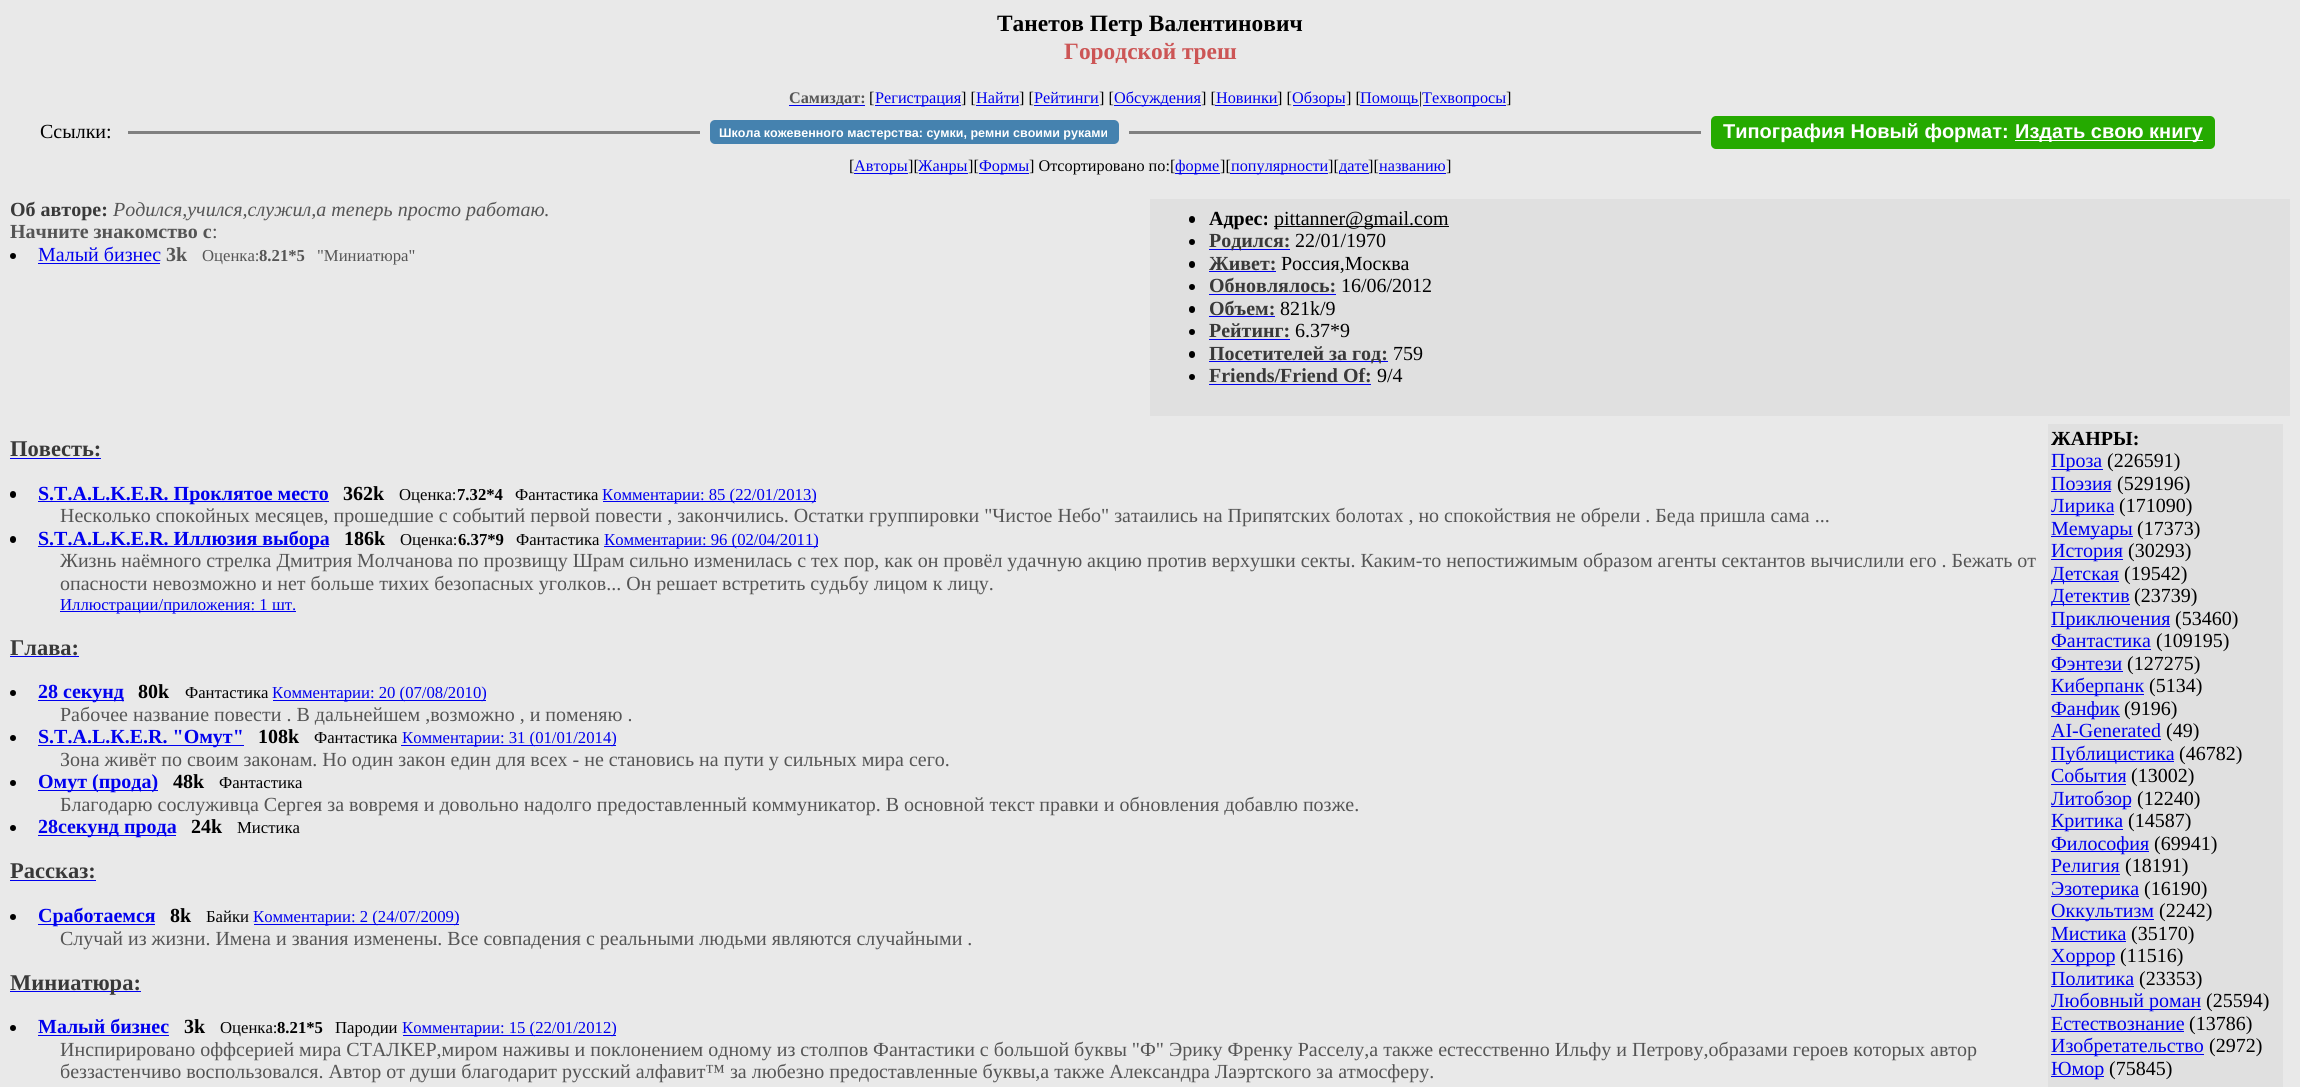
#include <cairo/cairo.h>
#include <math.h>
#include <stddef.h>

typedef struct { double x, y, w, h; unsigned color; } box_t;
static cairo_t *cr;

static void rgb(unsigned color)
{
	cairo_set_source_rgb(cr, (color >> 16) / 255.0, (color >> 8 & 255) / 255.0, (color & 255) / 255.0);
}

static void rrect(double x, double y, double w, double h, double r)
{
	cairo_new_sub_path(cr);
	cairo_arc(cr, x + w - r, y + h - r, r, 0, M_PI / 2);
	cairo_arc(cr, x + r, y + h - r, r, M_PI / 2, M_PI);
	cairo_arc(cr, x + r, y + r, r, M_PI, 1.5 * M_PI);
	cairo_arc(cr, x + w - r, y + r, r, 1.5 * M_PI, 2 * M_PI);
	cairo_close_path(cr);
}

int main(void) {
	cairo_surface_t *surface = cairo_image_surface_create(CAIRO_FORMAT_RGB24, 2300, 1087);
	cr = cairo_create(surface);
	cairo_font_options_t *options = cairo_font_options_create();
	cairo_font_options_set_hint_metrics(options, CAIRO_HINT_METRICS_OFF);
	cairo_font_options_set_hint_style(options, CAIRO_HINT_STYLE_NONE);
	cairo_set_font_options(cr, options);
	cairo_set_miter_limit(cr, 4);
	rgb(0xe9e9e9);
	cairo_paint(cr);
	{
		static const box_t items[] = {
			{789, 105, 76, 1, 0x0000ee},
			{875, 105, 86, 1, 0x0000ee},
			{976, 105, 43, 1, 0x0000ee},
			{1034, 105, 65, 1, 0x0000ee},
			{1114, 105, 87, 1, 0x0000ee},
			{1215, 105, 63, 1, 0x0000ee},
			{1293, 105, 52, 1, 0x0000ee},
			{1360, 105, 59, 1, 0x0000ee},
			{1423, 105, 83, 1, 0x0000ee},
			{128, 131, 572, 3, 0x808080},
		};
		for (size_t i = 0; i < sizeof items / sizeof *items; i++) {
			rgb(items[i].color);
			cairo_rectangle(cr, items[i].x, items[i].y, items[i].w, items[i].h);
			cairo_fill(cr);
		}
	}
	rgb(0x4582af);
	rrect(710, 120, 409, 24, 5);
	cairo_fill(cr);
	rgb(0x808080);
	cairo_rectangle(cr, 1129, 131, 572, 3);
	cairo_fill(cr);
	rgb(0x25aa00);
	rrect(1711, 116, 504, 33, 5);
	cairo_fill(cr);
	{
		static const box_t items[] = {
			{2015, 140, 188, 1, 0xffffff},
			{854, 173, 54, 1, 0x0000ee},
			{919, 173, 49, 1, 0x0000ee},
			{979, 173, 50, 1, 0x0000ee},
			{1175, 173, 45, 1, 0x0000ee},
			{1230, 173, 98, 1, 0x0000ee},
			{1339, 173, 30, 1, 0x0000ee},
			{1379, 173, 67, 1, 0x0000ee},
			{1150, 199, 1140, 217, 0xe0e0e0},
		};
		for (size_t i = 0; i < sizeof items / sizeof *items; i++) {
			rgb(items[i].color);
			cairo_rectangle(cr, items[i].x, items[i].y, items[i].w, items[i].h);
			cairo_fill(cr);
		}
	}
	rgb(0x000000);
	rrect(1189, 216, 6, 7, 3);
	cairo_fill(cr);
	cairo_rectangle(cr, 1274, 226, 175, 1);
	cairo_fill(cr);
	cairo_arc(cr, 1192, 242, 3, 0, 2 * M_PI);
	cairo_fill(cr);
	rgb(0x0000ee);
	cairo_rectangle(cr, 1209, 249, 81, 1);
	cairo_fill(cr);
	rgb(0x000000);
	rrect(1189, 261, 6, 7, 3);
	cairo_fill(cr);
	rgb(0x0000ee);
	cairo_rectangle(cr, 1209, 271, 67, 1);
	cairo_fill(cr);
	rgb(0x000000);
	cairo_arc(cr, 1192, 287, 3, 0, 2 * M_PI);
	cairo_fill(cr);
	rgb(0x0000ee);
	cairo_rectangle(cr, 1209, 294, 127, 1);
	cairo_fill(cr);
	rgb(0x000000);
	rrect(1189, 306, 6, 7, 3);
	cairo_fill(cr);
	rgb(0x0000ee);
	cairo_rectangle(cr, 1209, 316, 66, 1);
	cairo_fill(cr);
	rgb(0x000000);
	cairo_arc(cr, 1192, 332, 3, 0, 2 * M_PI);
	cairo_fill(cr);
	rgb(0x0000ee);
	cairo_rectangle(cr, 1209, 339, 81, 1);
	cairo_fill(cr);
	rgb(0x000000);
	rrect(1189, 351, 6, 7, 3);
	cairo_fill(cr);
	rgb(0x0000ee);
	cairo_rectangle(cr, 1209, 361, 179, 1);
	cairo_fill(cr);
	rgb(0x000000);
	cairo_arc(cr, 1192, 377, 3, 0, 2 * M_PI);
	cairo_fill(cr);
	rgb(0x0000ee);
	cairo_rectangle(cr, 1209, 384, 162, 1);
	cairo_fill(cr);
	rgb(0x000000);
	cairo_arc(cr, 13, 256, 3, 0, 2 * M_PI);
	cairo_fill(cr);
	rgb(0x0000ee);
	cairo_rectangle(cr, 38, 263, 122, 1);
	cairo_fill(cr);
	cairo_rectangle(cr, 10, 458, 91, 1);
	cairo_fill(cr);
	rgb(0x000000);
	rrect(10, 491, 6, 7, 3);
	cairo_fill(cr);
	rgb(0x0000ee);
	cairo_rectangle(cr, 38, 501, 291, 1);
	cairo_fill(cr);
	cairo_rectangle(cr, 603, 501, 213, 1);
	cairo_fill(cr);
	rgb(0x000000);
	rrect(10, 536, 6, 7, 3);
	cairo_fill(cr);
	{
		static const box_t items[] = {
			{38, 546, 291, 1, 0x0000ee},
			{604, 546, 214, 1, 0x0000ee},
			{60, 611, 236, 1, 0x0000ee},
			{10, 656, 69, 1, 0x0000ee},
		};
		for (size_t i = 0; i < sizeof items / sizeof *items; i++) {
			rgb(items[i].color);
			cairo_rectangle(cr, items[i].x, items[i].y, items[i].w, items[i].h);
			cairo_fill(cr);
		}
	}
	rgb(0x000000);
	cairo_arc(cr, 13, 693, 3, 0, 2 * M_PI);
	cairo_fill(cr);
	rgb(0x0000ee);
	cairo_rectangle(cr, 38, 700, 86, 1);
	cairo_fill(cr);
	cairo_rectangle(cr, 273, 700, 213, 1);
	cairo_fill(cr);
	rgb(0x000000);
	cairo_arc(cr, 13, 738, 3, 0, 2 * M_PI);
	cairo_fill(cr);
	rgb(0x0000ee);
	cairo_rectangle(cr, 38, 745, 206, 1);
	cairo_fill(cr);
	cairo_rectangle(cr, 401, 745, 215, 1);
	cairo_fill(cr);
	rgb(0x000000);
	cairo_arc(cr, 13, 783, 3, 0, 2 * M_PI);
	cairo_fill(cr);
	rgb(0x0000ee);
	cairo_rectangle(cr, 38, 790, 120, 1);
	cairo_fill(cr);
	rgb(0x000000);
	cairo_arc(cr, 13, 828, 3, 0, 2 * M_PI);
	cairo_fill(cr);
	rgb(0x0000ee);
	cairo_rectangle(cr, 38, 835, 138, 1);
	cairo_fill(cr);
	cairo_rectangle(cr, 10, 880, 86, 1);
	cairo_fill(cr);
	rgb(0x000000);
	cairo_arc(cr, 13, 917, 3, 0, 2 * M_PI);
	cairo_fill(cr);
	{
		static const box_t items[] = {
			{38, 924, 117, 1, 0x0000ee},
			{254, 924, 205, 1, 0x0000ee},
			{10, 991, 131, 1, 0x0000ee},
		};
		for (size_t i = 0; i < sizeof items / sizeof *items; i++) {
			rgb(items[i].color);
			cairo_rectangle(cr, items[i].x, items[i].y, items[i].w, items[i].h);
			cairo_fill(cr);
		}
	}
	rgb(0x000000);
	cairo_arc(cr, 13, 1028, 3, 0, 2 * M_PI);
	cairo_fill(cr);
	{
		static const box_t items[] = {
			{38, 1035, 131, 1, 0x0000ee},
			{403, 1035, 213, 1, 0x0000ee},
			{2048, 424, 235, 663, 0xe0e0e0},
			{2051, 469, 52, 1, 0x0000ee},
			{2051, 491, 60, 1, 0x0000ee},
			{2051, 514, 63, 1, 0x0000ee},
			{2051, 536, 82, 1, 0x0000ee},
			{2051, 559, 72, 1, 0x0000ee},
			{2051, 581, 68, 1, 0x0000ee},
			{2051, 604, 79, 1, 0x0000ee},
			{2051, 626, 119, 1, 0x0000ee},
			{2051, 649, 100, 1, 0x0000ee},
			{2051, 671, 72, 1, 0x0000ee},
			{2051, 694, 93, 1, 0x0000ee},
			{2051, 716, 69, 1, 0x0000ee},
			{2051, 739, 110, 1, 0x0000ee},
			{2051, 761, 123, 1, 0x0000ee},
			{2051, 784, 75, 1, 0x0000ee},
			{2051, 806, 80, 1, 0x0000ee},
			{2051, 829, 72, 1, 0x0000ee},
			{2051, 851, 98, 1, 0x0000ee},
			{2051, 874, 69, 1, 0x0000ee},
			{2051, 896, 88, 1, 0x0000ee},
			{2051, 919, 103, 1, 0x0000ee},
			{2051, 941, 75, 1, 0x0000ee},
			{2051, 964, 64, 1, 0x0000ee},
			{2051, 986, 83, 1, 0x0000ee},
			{2051, 1009, 150, 1, 0x0000ee},
			{2051, 1031, 133, 1, 0x0000ee},
			{2051, 1054, 153, 1, 0x0000ee},
			{2051, 1076, 53, 1, 0x0000ee},
		};
		for (size_t i = 0; i < sizeof items / sizeof *items; i++) {
			rgb(items[i].color);
			cairo_rectangle(cr, items[i].x, items[i].y, items[i].w, items[i].h);
			cairo_fill(cr);
		}
	}
	cairo_select_font_face(cr, "Liberation Serif", CAIRO_FONT_SLANT_NORMAL, CAIRO_FONT_WEIGHT_BOLD);
	cairo_set_font_size(cr, 23.4);
	rgb(0x000000);
	cairo_move_to(cr, 997, 31);
	cairo_show_text(cr, "Танетов Петр Валентинович");
	rgb(0xcc5555);
	cairo_move_to(cr, 1064, 59);
	cairo_show_text(cr, "Городской треш");
	cairo_set_font_size(cr, 16.25);
	rgb(0x555555);
	cairo_move_to(cr, 789, 103);
	cairo_show_text(cr, "Самиздат:");
	cairo_select_font_face(cr, "Liberation Serif", CAIRO_FONT_SLANT_NORMAL, CAIRO_FONT_WEIGHT_NORMAL);
	rgb(0x000000);
	cairo_move_to(cr, 869, 103);
	cairo_show_text(cr, "[");
	rgb(0x0000ee);
	cairo_move_to(cr, 875, 103);
	cairo_show_text(cr, "Регистрация");
	rgb(0x000000);
	cairo_move_to(cr, 961, 103);
	cairo_show_text(cr, "] [");
	rgb(0x0000ee);
	cairo_move_to(cr, 976, 103);
	cairo_show_text(cr, "Найти");
	rgb(0x000000);
	cairo_move_to(cr, 1019, 103);
	cairo_show_text(cr, "] [");
	rgb(0x0000ee);
	cairo_move_to(cr, 1034, 103);
	cairo_show_text(cr, "Рейтинги");
	rgb(0x000000);
	cairo_move_to(cr, 1099, 103);
	cairo_show_text(cr, "] [");
	rgb(0x0000ee);
	cairo_move_to(cr, 1114, 103);
	cairo_show_text(cr, "Обсуждения");
	rgb(0x000000);
	cairo_move_to(cr, 1201, 103);
	cairo_show_text(cr, "] [");
	rgb(0x0000ee);
	cairo_move_to(cr, 1216, 103);
	cairo_show_text(cr, "Новинки");
	rgb(0x000000);
	cairo_move_to(cr, 1277, 103);
	cairo_show_text(cr, "] [");
	rgb(0x0000ee);
	cairo_move_to(cr, 1292, 103);
	cairo_show_text(cr, "Обзоры");
	rgb(0x000000);
	cairo_move_to(cr, 1346, 103);
	cairo_show_text(cr, "] [");
	rgb(0x0000ee);
	cairo_move_to(cr, 1360, 103);
	cairo_show_text(cr, "Помощь");
	rgb(0x000000);
	cairo_move_to(cr, 1419, 103);
	cairo_show_text(cr, "|");
	rgb(0x0000ee);
	cairo_move_to(cr, 1422, 103);
	cairo_show_text(cr, "Техвопросы");
	rgb(0x000000);
	cairo_move_to(cr, 1506, 103);
	cairo_show_text(cr, "]");
	cairo_set_font_size(cr, 20);
	cairo_move_to(cr, 40, 138);
	cairo_show_text(cr, "Ссылки:");
	cairo_select_font_face(cr, "Liberation Sans", CAIRO_FONT_SLANT_NORMAL, CAIRO_FONT_WEIGHT_BOLD);
	cairo_set_font_size(cr, 12.5);
	rgb(0xffffff);
	cairo_move_to(cr, 719, 137);
	cairo_show_text(cr, "Школа кожевенного мастерства: сумки, ремни своими руками");
	cairo_set_font_size(cr, 20);
	cairo_move_to(cr, 1723, 138);
	cairo_show_text(cr, "Типография Новый формат:");
	cairo_move_to(cr, 2015, 138);
	cairo_show_text(cr, "Издать свою книгу");
	cairo_select_font_face(cr, "Liberation Serif", CAIRO_FONT_SLANT_NORMAL, CAIRO_FONT_WEIGHT_NORMAL);
	cairo_set_font_size(cr, 16.25);
	rgb(0x000000);
	cairo_move_to(cr, 849, 171);
	cairo_show_text(cr, "[");
	rgb(0x0000ee);
	cairo_move_to(cr, 854, 171);
	cairo_show_text(cr, "Авторы");
	rgb(0x000000);
	cairo_move_to(cr, 908, 171);
	cairo_show_text(cr, "][");
	rgb(0x0000ee);
	cairo_move_to(cr, 918, 171);
	cairo_show_text(cr, "Жанры");
	rgb(0x000000);
	cairo_move_to(cr, 968, 171);
	cairo_show_text(cr, "][");
	rgb(0x0000ee);
	cairo_move_to(cr, 979, 171);
	cairo_show_text(cr, "Формы");
	rgb(0x000000);
	cairo_move_to(cr, 1029, 171);
	cairo_show_text(cr, "] Отсортировано по:[");
	rgb(0x0000ee);
	cairo_move_to(cr, 1175, 171);
	cairo_show_text(cr, "форме");
	rgb(0x000000);
	cairo_move_to(cr, 1220, 171);
	cairo_show_text(cr, "][");
	rgb(0x0000ee);
	cairo_move_to(cr, 1231, 171);
	cairo_show_text(cr, "популярности");
	rgb(0x000000);
	cairo_move_to(cr, 1328, 171);
	cairo_show_text(cr, "][");
	rgb(0x0000ee);
	cairo_move_to(cr, 1339, 171);
	cairo_show_text(cr, "дате");
	rgb(0x000000);
	cairo_move_to(cr, 1368, 171);
	cairo_show_text(cr, "][");
	rgb(0x0000ee);
	cairo_move_to(cr, 1379, 171);
	cairo_show_text(cr, "названию");
	rgb(0x000000);
	cairo_move_to(cr, 1446, 171);
	cairo_show_text(cr, "]");
	cairo_select_font_face(cr, "Liberation Serif", CAIRO_FONT_SLANT_NORMAL, CAIRO_FONT_WEIGHT_BOLD);
	cairo_set_font_size(cr, 20);
	rgb(0x393939);
	cairo_move_to(cr, 10, 216);
	cairo_show_text(cr, "Об авторе:");
	cairo_select_font_face(cr, "Liberation Serif", CAIRO_FONT_SLANT_ITALIC, CAIRO_FONT_WEIGHT_NORMAL);
	rgb(0x555555);
	cairo_move_to(cr, 113, 216);
	cairo_show_text(cr, "Родился,учился,служил,а теперь просто работаю.");
	cairo_select_font_face(cr, "Liberation Serif", CAIRO_FONT_SLANT_NORMAL, CAIRO_FONT_WEIGHT_BOLD);
	rgb(0x000000);
	cairo_move_to(cr, 1209, 225);
	cairo_show_text(cr, "Aдpeс:");
	cairo_select_font_face(cr, "Liberation Serif", CAIRO_FONT_SLANT_NORMAL, CAIRO_FONT_WEIGHT_NORMAL);
	cairo_move_to(cr, 1274, 225);
	cairo_show_text(cr, "pittanner@gmail.com");
	cairo_select_font_face(cr, "Liberation Serif", CAIRO_FONT_SLANT_NORMAL, CAIRO_FONT_WEIGHT_BOLD);
	rgb(0x393939);
	cairo_move_to(cr, 1209, 247);
	cairo_show_text(cr, "Родился:");
	cairo_select_font_face(cr, "Liberation Serif", CAIRO_FONT_SLANT_NORMAL, CAIRO_FONT_WEIGHT_NORMAL);
	rgb(0x000000);
	cairo_move_to(cr, 1295, 247);
	cairo_show_text(cr, "22/01/1970");
	cairo_select_font_face(cr, "Liberation Serif", CAIRO_FONT_SLANT_NORMAL, CAIRO_FONT_WEIGHT_BOLD);
	rgb(0x393939);
	cairo_move_to(cr, 1209, 270);
	cairo_show_text(cr, "Живет:");
	cairo_select_font_face(cr, "Liberation Serif", CAIRO_FONT_SLANT_NORMAL, CAIRO_FONT_WEIGHT_NORMAL);
	rgb(0x000000);
	cairo_move_to(cr, 1281, 270);
	cairo_show_text(cr, "Россия,Москва");
	cairo_select_font_face(cr, "Liberation Serif", CAIRO_FONT_SLANT_NORMAL, CAIRO_FONT_WEIGHT_BOLD);
	rgb(0x393939);
	cairo_move_to(cr, 1209, 292);
	cairo_show_text(cr, "Обновлялось:");
	cairo_select_font_face(cr, "Liberation Serif", CAIRO_FONT_SLANT_NORMAL, CAIRO_FONT_WEIGHT_NORMAL);
	rgb(0x000000);
	cairo_move_to(cr, 1341, 292);
	cairo_show_text(cr, "16/06/2012");
	cairo_select_font_face(cr, "Liberation Serif", CAIRO_FONT_SLANT_NORMAL, CAIRO_FONT_WEIGHT_BOLD);
	rgb(0x393939);
	cairo_move_to(cr, 1209, 315);
	cairo_show_text(cr, "Объем:");
	cairo_select_font_face(cr, "Liberation Serif", CAIRO_FONT_SLANT_NORMAL, CAIRO_FONT_WEIGHT_NORMAL);
	rgb(0x000000);
	cairo_move_to(cr, 1280, 315);
	cairo_show_text(cr, "821k/9");
	cairo_select_font_face(cr, "Liberation Serif", CAIRO_FONT_SLANT_NORMAL, CAIRO_FONT_WEIGHT_BOLD);
	rgb(0x393939);
	cairo_move_to(cr, 1209, 337);
	cairo_show_text(cr, "Рейтинг:");
	cairo_select_font_face(cr, "Liberation Serif", CAIRO_FONT_SLANT_NORMAL, CAIRO_FONT_WEIGHT_NORMAL);
	rgb(0x000000);
	cairo_move_to(cr, 1295, 337);
	cairo_show_text(cr, "6.37*9");
	cairo_select_font_face(cr, "Liberation Serif", CAIRO_FONT_SLANT_NORMAL, CAIRO_FONT_WEIGHT_BOLD);
	rgb(0x393939);
	cairo_move_to(cr, 1209, 360);
	cairo_show_text(cr, "Посетителей за год:");
	cairo_select_font_face(cr, "Liberation Serif", CAIRO_FONT_SLANT_NORMAL, CAIRO_FONT_WEIGHT_NORMAL);
	rgb(0x000000);
	cairo_move_to(cr, 1393, 360);
	cairo_show_text(cr, "759");
	cairo_select_font_face(cr, "Liberation Serif", CAIRO_FONT_SLANT_NORMAL, CAIRO_FONT_WEIGHT_BOLD);
	rgb(0x393939);
	cairo_move_to(cr, 1209, 382);
	cairo_show_text(cr, "Friends/Friend Of:");
	cairo_select_font_face(cr, "Liberation Serif", CAIRO_FONT_SLANT_NORMAL, CAIRO_FONT_WEIGHT_NORMAL);
	rgb(0x000000);
	cairo_move_to(cr, 1377, 382);
	cairo_show_text(cr, "9/4");
	cairo_select_font_face(cr, "Liberation Serif", CAIRO_FONT_SLANT_NORMAL, CAIRO_FONT_WEIGHT_BOLD);
	rgb(0x555555);
	cairo_move_to(cr, 10, 238);
	cairo_show_text(cr, "Начните знакомство с");
	cairo_select_font_face(cr, "Liberation Serif", CAIRO_FONT_SLANT_NORMAL, CAIRO_FONT_WEIGHT_NORMAL);
	cairo_move_to(cr, 212, 238);
	cairo_show_text(cr, ":");
	rgb(0x0000ee);
	cairo_move_to(cr, 38, 261);
	cairo_show_text(cr, "Малый бизнес");
	cairo_select_font_face(cr, "Liberation Serif", CAIRO_FONT_SLANT_NORMAL, CAIRO_FONT_WEIGHT_BOLD);
	rgb(0x555555);
	cairo_move_to(cr, 166, 261);
	cairo_show_text(cr, "3k");
	cairo_select_font_face(cr, "Liberation Serif", CAIRO_FONT_SLANT_NORMAL, CAIRO_FONT_WEIGHT_NORMAL);
	cairo_set_font_size(cr, 16.7);
	cairo_move_to(cr, 202, 261);
	cairo_show_text(cr, "Оценка:");
	cairo_select_font_face(cr, "Liberation Serif", CAIRO_FONT_SLANT_NORMAL, CAIRO_FONT_WEIGHT_BOLD);
	cairo_move_to(cr, 259, 261);
	cairo_show_text(cr, "8.21*5");
	cairo_select_font_face(cr, "Liberation Serif", CAIRO_FONT_SLANT_NORMAL, CAIRO_FONT_WEIGHT_NORMAL);
	cairo_move_to(cr, 317, 261);
	cairo_show_text(cr, "\"Миниатюра\"");
	cairo_select_font_face(cr, "Liberation Serif", CAIRO_FONT_SLANT_NORMAL, CAIRO_FONT_WEIGHT_BOLD);
	cairo_set_font_size(cr, 22.5);
	rgb(0x393939);
	cairo_move_to(cr, 10, 456);
	cairo_show_text(cr, "Повесть:");
	cairo_set_font_size(cr, 20);
	rgb(0x0000ee);
	cairo_move_to(cr, 38, 500);
	cairo_show_text(cr, "S.T.A.L.K.E.R. Проклятое место");
	rgb(0x000000);
	cairo_move_to(cr, 343, 500);
	cairo_show_text(cr, "362k");
	cairo_select_font_face(cr, "Liberation Serif", CAIRO_FONT_SLANT_NORMAL, CAIRO_FONT_WEIGHT_NORMAL);
	cairo_set_font_size(cr, 16.7);
	cairo_move_to(cr, 399, 500);
	cairo_show_text(cr, "Оценка:");
	cairo_select_font_face(cr, "Liberation Serif", CAIRO_FONT_SLANT_NORMAL, CAIRO_FONT_WEIGHT_BOLD);
	cairo_move_to(cr, 457, 500);
	cairo_show_text(cr, "7.32*4");
	cairo_select_font_face(cr, "Liberation Serif", CAIRO_FONT_SLANT_NORMAL, CAIRO_FONT_WEIGHT_NORMAL);
	cairo_move_to(cr, 515, 500);
	cairo_show_text(cr, "Фантастика");
	rgb(0x0000ee);
	cairo_move_to(cr, 602, 500);
	cairo_show_text(cr, "Комментарии: 85 (22/01/2013)");
	cairo_set_font_size(cr, 20);
	rgb(0x555555);
	cairo_move_to(cr, 60, 522);
	cairo_show_text(cr, "Несколько спокойных месяцев, прошедшие с событий первой повести , закончились. Остатки группировки \"Чистое Небо\" затаились на Припятских болотах , но спокойствия не обрели . Беда пришла сама ...");
	cairo_select_font_face(cr, "Liberation Serif", CAIRO_FONT_SLANT_NORMAL, CAIRO_FONT_WEIGHT_BOLD);
	rgb(0x0000ee);
	cairo_move_to(cr, 38, 545);
	cairo_show_text(cr, "S.T.A.L.K.E.R. Иллюзия выбора");
	rgb(0x000000);
	cairo_move_to(cr, 344, 545);
	cairo_show_text(cr, "186k");
	cairo_select_font_face(cr, "Liberation Serif", CAIRO_FONT_SLANT_NORMAL, CAIRO_FONT_WEIGHT_NORMAL);
	cairo_set_font_size(cr, 16.7);
	cairo_move_to(cr, 400, 545);
	cairo_show_text(cr, "Оценка:");
	cairo_select_font_face(cr, "Liberation Serif", CAIRO_FONT_SLANT_NORMAL, CAIRO_FONT_WEIGHT_BOLD);
	cairo_move_to(cr, 458, 545);
	cairo_show_text(cr, "6.37*9");
	cairo_select_font_face(cr, "Liberation Serif", CAIRO_FONT_SLANT_NORMAL, CAIRO_FONT_WEIGHT_NORMAL);
	cairo_move_to(cr, 516, 545);
	cairo_show_text(cr, "Фантастика");
	rgb(0x0000ee);
	cairo_move_to(cr, 604, 545);
	cairo_show_text(cr, "Комментарии: 96 (02/04/2011)");
	cairo_set_font_size(cr, 20);
	rgb(0x555555);
	cairo_move_to(cr, 60, 567);
	cairo_show_text(cr, "Жизнь наёмного стрелка Дмитрия Молчанова по прозвищу Шрам сильно изменилась с тех пор, как он провёл удачную акцию против верхушки секты. Каким-то непостижимым образом агенты сектантов вычислили его . Бежать от");
	cairo_move_to(cr, 60, 590);
	cairo_show_text(cr, "опасности невозможно и нет больше тихих безопасных уголков... Он решает встретить судьбу лицом к лицу.");
	cairo_set_font_size(cr, 16.7);
	rgb(0x0000ee);
	cairo_move_to(cr, 60, 610);
	cairo_show_text(cr, "Иллюстрации/приложения: 1 шт.");
	cairo_select_font_face(cr, "Liberation Serif", CAIRO_FONT_SLANT_NORMAL, CAIRO_FONT_WEIGHT_BOLD);
	cairo_set_font_size(cr, 22.5);
	rgb(0x393939);
	cairo_move_to(cr, 10, 655);
	cairo_show_text(cr, "Глава:");
	cairo_set_font_size(cr, 20);
	rgb(0x0000ee);
	cairo_move_to(cr, 38, 698);
	cairo_show_text(cr, "28 секунд");
	rgb(0x000000);
	cairo_move_to(cr, 138, 698);
	cairo_show_text(cr, "80k");
	cairo_select_font_face(cr, "Liberation Serif", CAIRO_FONT_SLANT_NORMAL, CAIRO_FONT_WEIGHT_NORMAL);
	cairo_set_font_size(cr, 16.7);
	cairo_move_to(cr, 185, 698);
	cairo_show_text(cr, "Фантастика");
	rgb(0x0000ee);
	cairo_move_to(cr, 272, 698);
	cairo_show_text(cr, "Комментарии: 20 (07/08/2010)");
	cairo_set_font_size(cr, 20);
	rgb(0x555555);
	cairo_move_to(cr, 60, 721);
	cairo_show_text(cr, "Рабочее название повести . В дальнейшем ,возможно , и поменяю .");
	cairo_select_font_face(cr, "Liberation Serif", CAIRO_FONT_SLANT_NORMAL, CAIRO_FONT_WEIGHT_BOLD);
	rgb(0x0000ee);
	cairo_move_to(cr, 38, 743);
	cairo_show_text(cr, "S.T.A.L.К.E.R. \"Омут\"");
	rgb(0x000000);
	cairo_move_to(cr, 258, 743);
	cairo_show_text(cr, "108k");
	cairo_select_font_face(cr, "Liberation Serif", CAIRO_FONT_SLANT_NORMAL, CAIRO_FONT_WEIGHT_NORMAL);
	cairo_set_font_size(cr, 16.7);
	cairo_move_to(cr, 314, 743);
	cairo_show_text(cr, "Фантастика");
	rgb(0x0000ee);
	cairo_move_to(cr, 402, 743);
	cairo_show_text(cr, "Комментарии: 31 (01/01/2014)");
	cairo_set_font_size(cr, 20);
	rgb(0x555555);
	cairo_move_to(cr, 60, 766);
	cairo_show_text(cr, "Зона живёт по своим законам. Но один закон един для всех - не становись на пути у сильных мира сего.");
	cairo_select_font_face(cr, "Liberation Serif", CAIRO_FONT_SLANT_NORMAL, CAIRO_FONT_WEIGHT_BOLD);
	rgb(0x0000ee);
	cairo_move_to(cr, 38, 788);
	cairo_show_text(cr, "Омут (прода)");
	rgb(0x000000);
	cairo_move_to(cr, 173, 788);
	cairo_show_text(cr, "48k");
	cairo_select_font_face(cr, "Liberation Serif", CAIRO_FONT_SLANT_NORMAL, CAIRO_FONT_WEIGHT_NORMAL);
	cairo_set_font_size(cr, 16.7);
	cairo_move_to(cr, 219, 788);
	cairo_show_text(cr, "Фантастика");
	cairo_set_font_size(cr, 20);
	rgb(0x555555);
	cairo_move_to(cr, 60, 811);
	cairo_show_text(cr, "Благодарю сослуживца Сергея за вовремя и довольно надолго предоставленный коммуникатор. В основной текст правки и обновления добавлю позже.");
	cairo_select_font_face(cr, "Liberation Serif", CAIRO_FONT_SLANT_NORMAL, CAIRO_FONT_WEIGHT_BOLD);
	rgb(0x0000ee);
	cairo_move_to(cr, 38, 833);
	cairo_show_text(cr, "28секунд прода");
	rgb(0x000000);
	cairo_move_to(cr, 191, 833);
	cairo_show_text(cr, "24k");
	cairo_select_font_face(cr, "Liberation Serif", CAIRO_FONT_SLANT_NORMAL, CAIRO_FONT_WEIGHT_NORMAL);
	cairo_set_font_size(cr, 16.7);
	cairo_move_to(cr, 237, 833);
	cairo_show_text(cr, "Мистика");
	cairo_select_font_face(cr, "Liberation Serif", CAIRO_FONT_SLANT_NORMAL, CAIRO_FONT_WEIGHT_BOLD);
	cairo_set_font_size(cr, 22.5);
	rgb(0x393939);
	cairo_move_to(cr, 10, 878);
	cairo_show_text(cr, "Рассказ:");
	cairo_set_font_size(cr, 20);
	rgb(0x0000ee);
	cairo_move_to(cr, 38, 922);
	cairo_show_text(cr, "Cpаботаемся");
	rgb(0x000000);
	cairo_move_to(cr, 170, 922);
	cairo_show_text(cr, "8k");
	cairo_select_font_face(cr, "Liberation Serif", CAIRO_FONT_SLANT_NORMAL, CAIRO_FONT_WEIGHT_NORMAL);
	cairo_set_font_size(cr, 16.7);
	cairo_move_to(cr, 206, 922);
	cairo_show_text(cr, "Байки");
	rgb(0x0000ee);
	cairo_move_to(cr, 253, 922);
	cairo_show_text(cr, "Комментарии: 2 (24/07/2009)");
	cairo_set_font_size(cr, 20);
	rgb(0x555555);
	cairo_move_to(cr, 60, 945);
	cairo_show_text(cr, "Случай из жизни. Имена и звания изменены. Все совпадения с реальными людьми являются случайными .");
	cairo_select_font_face(cr, "Liberation Serif", CAIRO_FONT_SLANT_NORMAL, CAIRO_FONT_WEIGHT_BOLD);
	cairo_set_font_size(cr, 22.5);
	rgb(0x393939);
	cairo_move_to(cr, 10, 990);
	cairo_show_text(cr, "Миниатюра:");
	cairo_set_font_size(cr, 20);
	rgb(0x0000ee);
	cairo_move_to(cr, 38, 1033);
	cairo_show_text(cr, "Малый бизнес");
	rgb(0x000000);
	cairo_move_to(cr, 184, 1033);
	cairo_show_text(cr, "3k");
	cairo_select_font_face(cr, "Liberation Serif", CAIRO_FONT_SLANT_NORMAL, CAIRO_FONT_WEIGHT_NORMAL);
	cairo_set_font_size(cr, 16.7);
	cairo_move_to(cr, 220, 1033);
	cairo_show_text(cr, "Оценка:");
	cairo_select_font_face(cr, "Liberation Serif", CAIRO_FONT_SLANT_NORMAL, CAIRO_FONT_WEIGHT_BOLD);
	cairo_move_to(cr, 277, 1033);
	cairo_show_text(cr, "8.21*5");
	cairo_select_font_face(cr, "Liberation Serif", CAIRO_FONT_SLANT_NORMAL, CAIRO_FONT_WEIGHT_NORMAL);
	cairo_move_to(cr, 335, 1033);
	cairo_show_text(cr, "Пародии");
	rgb(0x0000ee);
	cairo_move_to(cr, 402, 1033);
	cairo_show_text(cr, "Комментарии: 15 (22/01/2012)");
	cairo_set_font_size(cr, 20);
	rgb(0x555555);
	cairo_move_to(cr, 60, 1056);
	cairo_show_text(cr, "Инспирировано оффсерией мира СТАЛКЕР,миром наживы и поклонением одному из столпов Фантастики с большой буквы \"Ф\" Эрику Френку Расселу,а также естесственно Ильфу и Петрову,образами героев которых автор");
	cairo_move_to(cr, 60, 1078);
	cairo_show_text(cr, "беззастенчиво воспользовался. Автор от души благодарит русский алфавит™ за любезно предоставленные буквы,а также Александра Лаэртского за атмосферу.");
	cairo_select_font_face(cr, "Liberation Serif", CAIRO_FONT_SLANT_NORMAL, CAIRO_FONT_WEIGHT_BOLD);
	rgb(0x000000);
	cairo_move_to(cr, 2051, 445);
	cairo_show_text(cr, "ЖАНРЫ:");
	cairo_select_font_face(cr, "Liberation Serif", CAIRO_FONT_SLANT_NORMAL, CAIRO_FONT_WEIGHT_NORMAL);
	rgb(0x0000ee);
	cairo_move_to(cr, 2051, 467);
	cairo_show_text(cr, "Проза");
	rgb(0x000000);
	cairo_move_to(cr, 2107, 467);
	cairo_show_text(cr, "(226591)");
	rgb(0x0000ee);
	cairo_move_to(cr, 2051, 490);
	cairo_show_text(cr, "Поэзия");
	rgb(0x000000);
	cairo_move_to(cr, 2117, 490);
	cairo_show_text(cr, "(529196)");
	rgb(0x0000ee);
	cairo_move_to(cr, 2051, 512);
	cairo_show_text(cr, "Лирика");
	rgb(0x000000);
	cairo_move_to(cr, 2119, 512);
	cairo_show_text(cr, "(171090)");
	rgb(0x0000ee);
	cairo_move_to(cr, 2051, 535);
	cairo_show_text(cr, "Мемуары");
	rgb(0x000000);
	cairo_move_to(cr, 2137, 535);
	cairo_show_text(cr, "(17373)");
	rgb(0x0000ee);
	cairo_move_to(cr, 2051, 557);
	cairo_show_text(cr, "История");
	rgb(0x000000);
	cairo_move_to(cr, 2128, 557);
	cairo_show_text(cr, "(30293)");
	rgb(0x0000ee);
	cairo_move_to(cr, 2051, 580);
	cairo_show_text(cr, "Детская");
	rgb(0x000000);
	cairo_move_to(cr, 2124, 580);
	cairo_show_text(cr, "(19542)");
	rgb(0x0000ee);
	cairo_move_to(cr, 2051, 602);
	cairo_show_text(cr, "Детектив");
	rgb(0x000000);
	cairo_move_to(cr, 2134, 602);
	cairo_show_text(cr, "(23739)");
	rgb(0x0000ee);
	cairo_move_to(cr, 2051, 625);
	cairo_show_text(cr, "Приключения");
	rgb(0x000000);
	cairo_move_to(cr, 2175, 625);
	cairo_show_text(cr, "(53460)");
	rgb(0x0000ee);
	cairo_move_to(cr, 2051, 647);
	cairo_show_text(cr, "Фантастика");
	rgb(0x000000);
	cairo_move_to(cr, 2156, 647);
	cairo_show_text(cr, "(109195)");
	rgb(0x0000ee);
	cairo_move_to(cr, 2051, 670);
	cairo_show_text(cr, "Фэнтези");
	rgb(0x000000);
	cairo_move_to(cr, 2127, 670);
	cairo_show_text(cr, "(127275)");
	rgb(0x0000ee);
	cairo_move_to(cr, 2051, 692);
	cairo_show_text(cr, "Киберпанк");
	rgb(0x000000);
	cairo_move_to(cr, 2149, 692);
	cairo_show_text(cr, "(5134)");
	rgb(0x0000ee);
	cairo_move_to(cr, 2051, 715);
	cairo_show_text(cr, "Фанфик");
	rgb(0x000000);
	cairo_move_to(cr, 2124, 715);
	cairo_show_text(cr, "(9196)");
	rgb(0x0000ee);
	cairo_move_to(cr, 2051, 737);
	cairo_show_text(cr, "AI-Generated");
	rgb(0x000000);
	cairo_move_to(cr, 2166, 737);
	cairo_show_text(cr, "(49)");
	rgb(0x0000ee);
	cairo_move_to(cr, 2051, 760);
	cairo_show_text(cr, "Публицистика");
	rgb(0x000000);
	cairo_move_to(cr, 2179, 760);
	cairo_show_text(cr, "(46782)");
	rgb(0x0000ee);
	cairo_move_to(cr, 2051, 782);
	cairo_show_text(cr, "События");
	rgb(0x000000);
	cairo_move_to(cr, 2131, 782);
	cairo_show_text(cr, "(13002)");
	rgb(0x0000ee);
	cairo_move_to(cr, 2051, 805);
	cairo_show_text(cr, "Литобзор");
	rgb(0x000000);
	cairo_move_to(cr, 2137, 805);
	cairo_show_text(cr, "(12240)");
	rgb(0x0000ee);
	cairo_move_to(cr, 2051, 827);
	cairo_show_text(cr, "Критика");
	rgb(0x000000);
	cairo_move_to(cr, 2128, 827);
	cairo_show_text(cr, "(14587)");
	rgb(0x0000ee);
	cairo_move_to(cr, 2051, 850);
	cairo_show_text(cr, "Философия");
	rgb(0x000000);
	cairo_move_to(cr, 2154, 850);
	cairo_show_text(cr, "(69941)");
	rgb(0x0000ee);
	cairo_move_to(cr, 2051, 872);
	cairo_show_text(cr, "Религия");
	rgb(0x000000);
	cairo_move_to(cr, 2125, 872);
	cairo_show_text(cr, "(18191)");
	rgb(0x0000ee);
	cairo_move_to(cr, 2051, 895);
	cairo_show_text(cr, "Эзотерика");
	rgb(0x000000);
	cairo_move_to(cr, 2144, 895);
	cairo_show_text(cr, "(16190)");
	rgb(0x0000ee);
	cairo_move_to(cr, 2051, 917);
	cairo_show_text(cr, "Оккультизм");
	rgb(0x000000);
	cairo_move_to(cr, 2159, 917);
	cairo_show_text(cr, "(2242)");
	rgb(0x0000ee);
	cairo_move_to(cr, 2051, 940);
	cairo_show_text(cr, "Мистика");
	rgb(0x000000);
	cairo_move_to(cr, 2131, 940);
	cairo_show_text(cr, "(35170)");
	rgb(0x0000ee);
	cairo_move_to(cr, 2051, 962);
	cairo_show_text(cr, "Хоррор");
	rgb(0x000000);
	cairo_move_to(cr, 2120, 962);
	cairo_show_text(cr, "(11516)");
	rgb(0x0000ee);
	cairo_move_to(cr, 2051, 985);
	cairo_show_text(cr, "Политика");
	rgb(0x000000);
	cairo_move_to(cr, 2139, 985);
	cairo_show_text(cr, "(23353)");
	rgb(0x0000ee);
	cairo_move_to(cr, 2051, 1007);
	cairo_show_text(cr, "Любовный роман");
	rgb(0x000000);
	cairo_move_to(cr, 2206, 1007);
	cairo_show_text(cr, "(25594)");
	rgb(0x0000ee);
	cairo_move_to(cr, 2051, 1030);
	cairo_show_text(cr, "Естествознание");
	rgb(0x000000);
	cairo_move_to(cr, 2189, 1030);
	cairo_show_text(cr, "(13786)");
	rgb(0x0000ee);
	cairo_move_to(cr, 2051, 1052);
	cairo_show_text(cr, "Изобретательство");
	rgb(0x000000);
	cairo_move_to(cr, 2209, 1052);
	cairo_show_text(cr, "(2972)");
	rgb(0x0000ee);
	cairo_move_to(cr, 2051, 1075);
	cairo_show_text(cr, "Юмор");
	rgb(0x000000);
	cairo_move_to(cr, 2109, 1075);
	cairo_show_text(cr, "(75845)");
	cairo_surface_write_to_png(surface, "page.png");
	cairo_font_options_destroy(options);
	cairo_destroy(cr);
	cairo_surface_destroy(surface);
	return 0;
}
